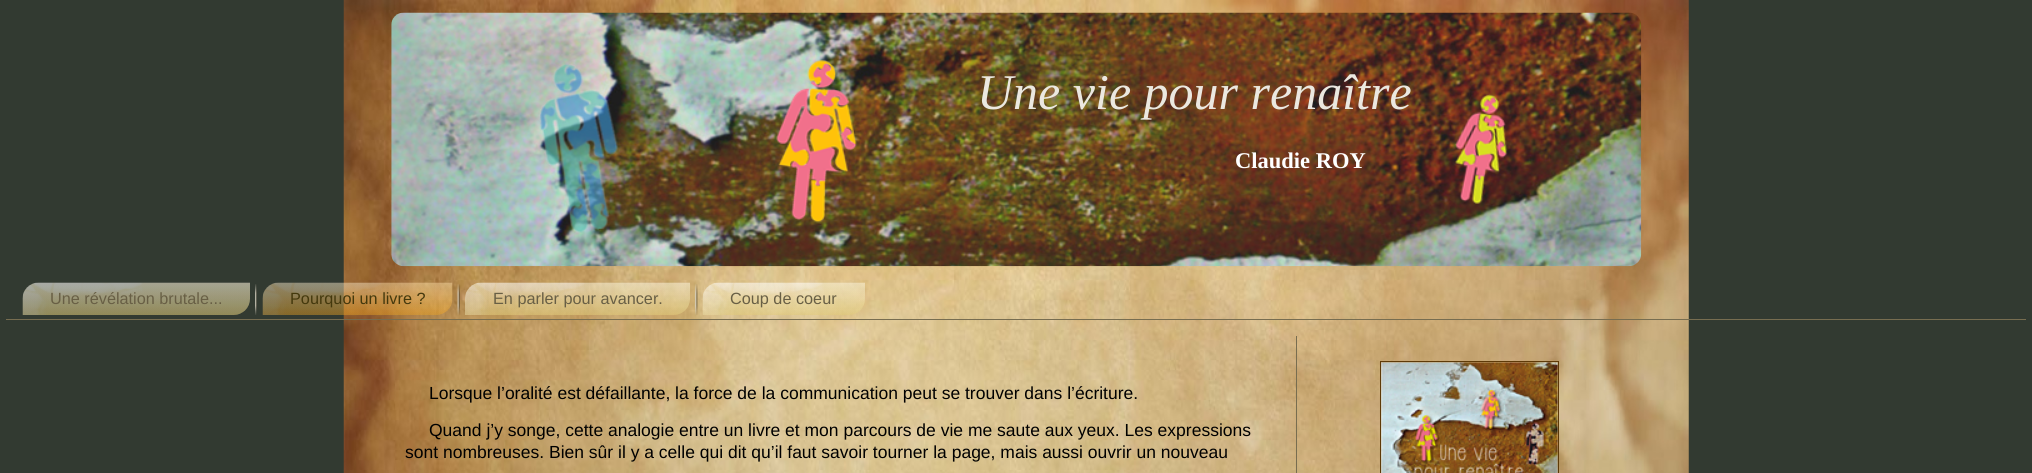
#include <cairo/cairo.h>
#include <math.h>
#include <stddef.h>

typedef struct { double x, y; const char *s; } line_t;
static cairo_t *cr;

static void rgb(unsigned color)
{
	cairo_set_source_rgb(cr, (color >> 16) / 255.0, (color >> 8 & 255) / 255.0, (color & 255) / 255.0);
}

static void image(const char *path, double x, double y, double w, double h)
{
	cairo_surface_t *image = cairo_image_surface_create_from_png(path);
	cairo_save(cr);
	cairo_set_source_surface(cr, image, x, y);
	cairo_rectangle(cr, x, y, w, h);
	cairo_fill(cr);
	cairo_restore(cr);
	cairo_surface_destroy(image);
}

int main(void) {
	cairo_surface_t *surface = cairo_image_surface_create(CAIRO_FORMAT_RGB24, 2032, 473);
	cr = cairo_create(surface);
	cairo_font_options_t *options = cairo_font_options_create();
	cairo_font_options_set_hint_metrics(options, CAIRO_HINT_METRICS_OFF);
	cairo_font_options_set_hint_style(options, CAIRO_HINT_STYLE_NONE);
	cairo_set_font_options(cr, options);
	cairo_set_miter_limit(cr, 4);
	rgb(0x323a31);
	cairo_paint(cr);
	image("img/1.png", 343, 0, 1346, 473);
	image("img/2.png", 391, 12, 1251, 255);
	rgb(0x776d50);
	cairo_rectangle(cr, 6, 319, 2020, 1);
	cairo_fill(cr);
	image("img/3.png", 22, 282, 228, 33);
	image("img/4.png", 255, 284, 2, 31);
	image("img/5.png", 262, 282, 191, 33);
	image("img/6.png", 457, 284, 3, 31);
	image("img/7.png", 465, 282, 225, 33);
	image("img/8.png", 695, 284, 3, 31);
	image("img/9.png", 702, 282, 163, 33);
	cairo_rectangle(cr, 1296, 336, 1, 137);
	cairo_fill(cr);
	cairo_rectangle(cr, 1380.5, 361.5, 178, 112);
	rgb(0x5e3a08);
	cairo_set_line_width(cr, 1);
	cairo_stroke(cr);
	image("img/10.png", 1381, 362, 177, 111);
	cairo_select_font_face(cr, "Liberation Serif", CAIRO_FONT_SLANT_ITALIC, CAIRO_FONT_WEIGHT_NORMAL);
	cairo_set_font_size(cr, 50);
	rgb(0xebe8e0);
	cairo_move_to(cr, 977, 109);
	cairo_show_text(cr, "Une vie pour renaître");
	cairo_select_font_face(cr, "Liberation Serif", CAIRO_FONT_SLANT_NORMAL, CAIRO_FONT_WEIGHT_BOLD);
	cairo_set_font_size(cr, 22.5);
	rgb(0xffffff);
	cairo_move_to(cr, 1235, 168);
	cairo_show_text(cr, "Claudie ROY");
	cairo_select_font_face(cr, "Liberation Sans", CAIRO_FONT_SLANT_NORMAL, CAIRO_FONT_WEIGHT_NORMAL);
	cairo_set_font_size(cr, 16.25);
	rgb(0x685f45);
	cairo_move_to(cr, 50, 304);
	cairo_show_text(cr, "Une révélation brutale...");
	rgb(0x44390d);
	cairo_move_to(cr, 290, 304);
	cairo_show_text(cr, "Pourquoi un livre ?");
	rgb(0x685f45);
	cairo_move_to(cr, 493, 304);
	cairo_show_text(cr, "En parler pour avancer.");
	cairo_move_to(cr, 730, 304);
	cairo_show_text(cr, "Coup de coeur");
	cairo_set_font_size(cr, 17.5);
	rgb(0x000000);
	{
		static const line_t items[] = {
			{429, 399, "Lorsque l’oralité est défaillante, la force de la communication peut se trouver dans l’écriture."},
			{429, 436, "Quand j’y songe, cette analogie entre un livre et mon parcours de vie me saute aux yeux. Les expressions"},
			{405, 458, "sont nombreuses. Bien sûr il y a celle qui dit qu’il faut savoir tourner la page, mais aussi ouvrir un nouveau"},
		};
		for (size_t i = 0; i < sizeof items / sizeof *items; i++) {
			cairo_move_to(cr, items[i].x, items[i].y);
			cairo_show_text(cr, items[i].s);
		}
	}
	cairo_surface_write_to_png(surface, "page.png");
	cairo_font_options_destroy(options);
	cairo_destroy(cr);
	cairo_surface_destroy(surface);
	return 0;
}
